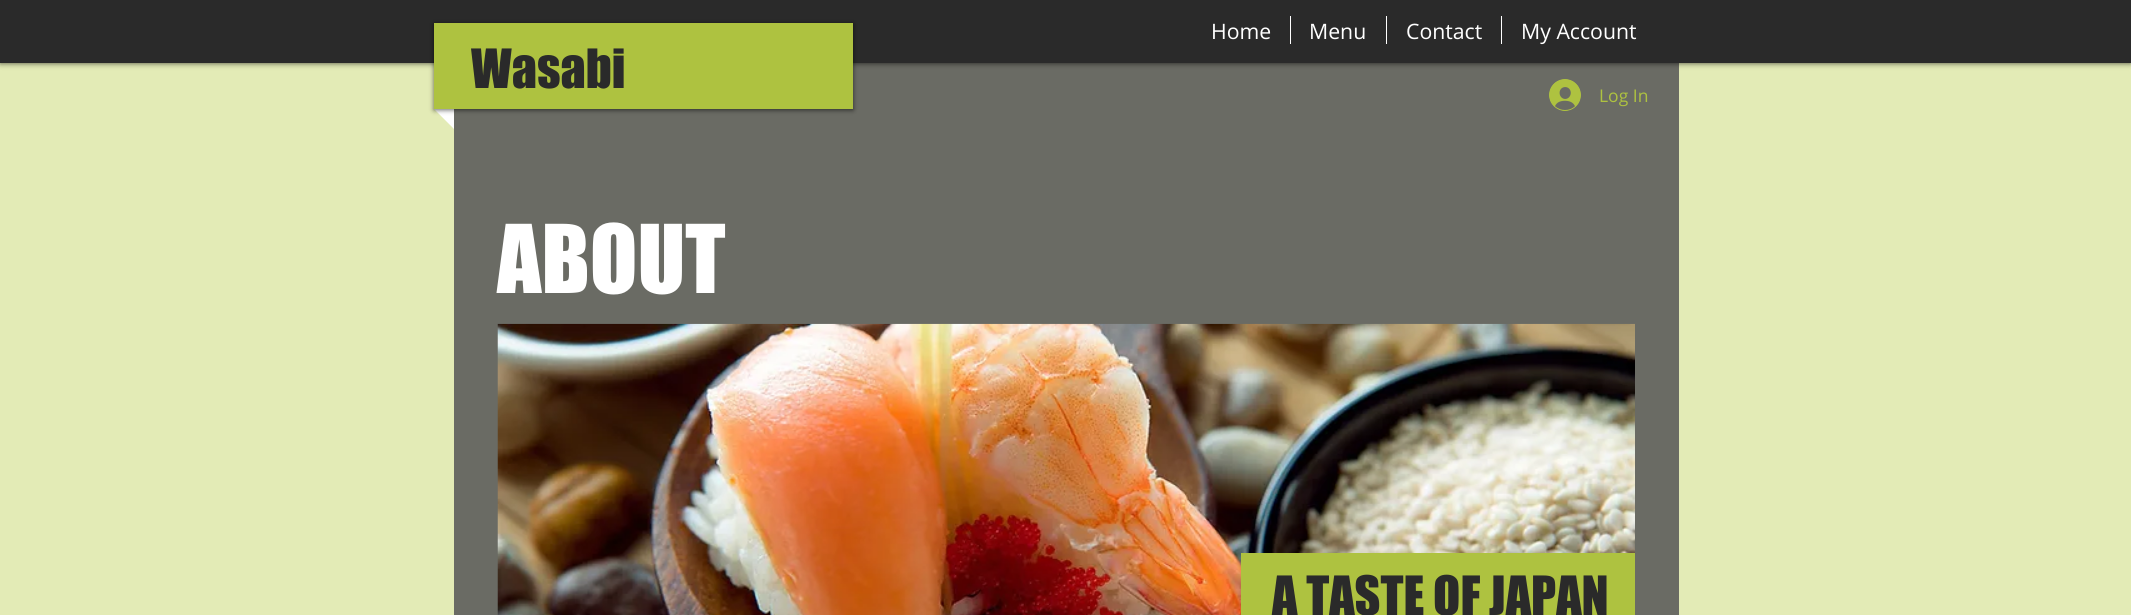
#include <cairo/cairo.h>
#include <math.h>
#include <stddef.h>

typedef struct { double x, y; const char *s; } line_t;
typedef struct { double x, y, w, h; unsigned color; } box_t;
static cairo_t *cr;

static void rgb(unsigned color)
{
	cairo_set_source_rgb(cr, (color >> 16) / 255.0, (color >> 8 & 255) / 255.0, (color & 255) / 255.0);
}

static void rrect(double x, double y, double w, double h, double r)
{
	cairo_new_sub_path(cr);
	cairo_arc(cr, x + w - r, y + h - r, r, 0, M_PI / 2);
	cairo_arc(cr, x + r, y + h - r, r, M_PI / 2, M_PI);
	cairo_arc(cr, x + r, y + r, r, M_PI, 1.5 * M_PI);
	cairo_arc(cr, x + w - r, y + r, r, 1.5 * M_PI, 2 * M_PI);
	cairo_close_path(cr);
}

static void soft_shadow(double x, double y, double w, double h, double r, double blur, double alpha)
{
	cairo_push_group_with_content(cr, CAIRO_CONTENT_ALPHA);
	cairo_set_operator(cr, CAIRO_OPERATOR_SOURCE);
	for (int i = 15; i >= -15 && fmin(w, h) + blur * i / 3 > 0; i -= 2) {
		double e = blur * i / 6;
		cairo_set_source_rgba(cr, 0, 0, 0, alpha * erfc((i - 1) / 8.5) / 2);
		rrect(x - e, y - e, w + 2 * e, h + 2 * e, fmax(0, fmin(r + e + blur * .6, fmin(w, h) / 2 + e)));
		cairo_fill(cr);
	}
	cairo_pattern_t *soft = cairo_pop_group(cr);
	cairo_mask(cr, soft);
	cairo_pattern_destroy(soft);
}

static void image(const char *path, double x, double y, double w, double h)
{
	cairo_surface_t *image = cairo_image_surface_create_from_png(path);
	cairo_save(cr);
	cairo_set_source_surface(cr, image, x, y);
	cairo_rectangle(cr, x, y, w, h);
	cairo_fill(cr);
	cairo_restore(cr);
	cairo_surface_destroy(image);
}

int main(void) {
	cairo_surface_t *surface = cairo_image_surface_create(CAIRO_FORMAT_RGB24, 2131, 615);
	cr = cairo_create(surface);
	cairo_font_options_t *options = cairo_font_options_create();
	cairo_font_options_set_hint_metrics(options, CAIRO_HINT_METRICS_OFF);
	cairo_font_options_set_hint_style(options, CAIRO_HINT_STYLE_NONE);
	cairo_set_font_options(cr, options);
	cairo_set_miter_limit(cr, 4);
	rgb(0xe3ebb6);
	cairo_paint(cr);
	rgb(0x6a6b64);
	cairo_rectangle(cr, 454, 63, 1225, 552);
	cairo_fill(cr);
	rgb(0x000000);
	soft_shadow(0, 0, 2131, 63, 0, 3, 0.7);
	{
		static const box_t items[] = {
			{0, 0, 2131, 63, 0x2a2a2a},
			{1290, 16, 1, 28, 0xffffff},
			{1386, 16, 1, 28, 0xffffff},
			{1501, 16, 1, 28, 0xffffff},
		};
		for (size_t i = 0; i < sizeof items / sizeof *items; i++) {
			rgb(items[i].color);
			cairo_rectangle(cr, items[i].x, items[i].y, items[i].w, items[i].h);
			cairo_fill(cr);
		}
	}
	cairo_new_path(cr);
	cairo_move_to(cr, 434, 109);
	cairo_line_to(cr, 454, 109);
	cairo_line_to(cr, 454, 129);
	cairo_close_path(cr);
	cairo_fill(cr);
	rgb(0x000000);
	soft_shadow(434, 24, 419, 86, 0, 2.5, 0.6);
	rgb(0xaec240);
	cairo_rectangle(cr, 434, 23, 419, 86);
	cairo_fill(cr);
	image("img/1.png", 1549, 79, 32, 32);
	image("img/2.png", 497, 323, 1138, 292);
	cairo_rectangle(cr, 1241, 553, 394, 62);
	cairo_fill(cr);
	cairo_select_font_face(cr, "Open Sans", CAIRO_FONT_SLANT_NORMAL, CAIRO_FONT_WEIGHT_NORMAL);
	cairo_set_font_size(cr, 21.25);
	rgb(0xffffff);
	{
		static const line_t items[] = {
			{1211, 39, "Home"},
			{1309, 39, "Menu"},
			{1406, 39, "Contact"},
			{1521, 39, "My Account"},
		};
		for (size_t i = 0; i < sizeof items / sizeof *items; i++) {
			cairo_move_to(cr, items[i].x, items[i].y);
			cairo_show_text(cr, items[i].s);
		}
	}
	cairo_select_font_face(cr, "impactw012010", CAIRO_FONT_SLANT_NORMAL, CAIRO_FONT_WEIGHT_NORMAL);
	cairo_set_font_size(cr, 50);
	rgb(0x2a2a2a);
	cairo_move_to(cr, 471, 88);
	cairo_show_text(cr, "Wasabi");
	cairo_select_font_face(cr, "Open Sans", CAIRO_FONT_SLANT_NORMAL, CAIRO_FONT_WEIGHT_NORMAL);
	cairo_set_font_size(cr, 17.5);
	rgb(0xaec240);
	cairo_move_to(cr, 1599, 102);
	cairo_show_text(cr, "Log In");
	cairo_select_font_face(cr, "impactw012010", CAIRO_FONT_SLANT_NORMAL, CAIRO_FONT_WEIGHT_NORMAL);
	cairo_set_font_size(cr, 87.5);
	rgb(0xffffff);
	cairo_move_to(cr, 497, 293);
	cairo_show_text(cr, "ABOUT");
	cairo_set_font_size(cr, 50);
	rgb(0x2a2a2a);
	cairo_move_to(cr, 1272, 615);
	cairo_show_text(cr, "A TASTE OF JAPAN");
	cairo_surface_write_to_png(surface, "page.png");
	cairo_font_options_destroy(options);
	cairo_destroy(cr);
	cairo_surface_destroy(surface);
	return 0;
}
